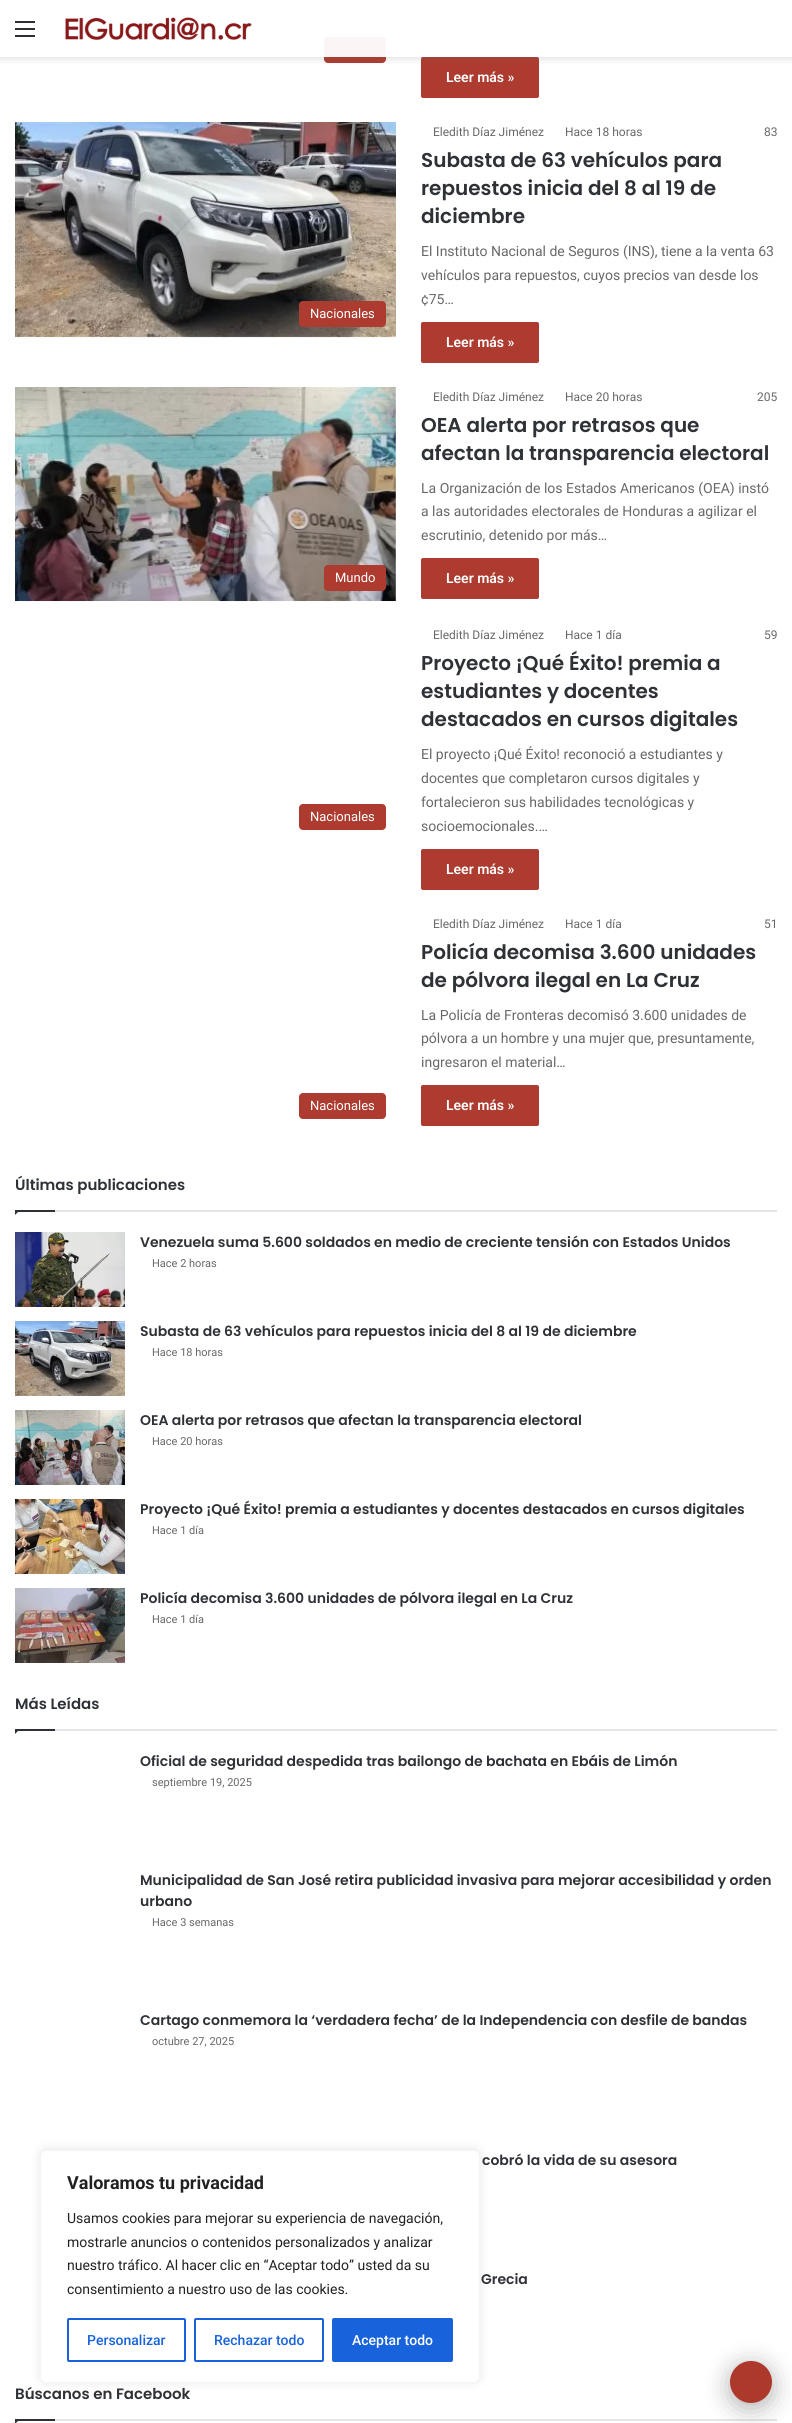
#include <cairo/cairo.h>
#include <math.h>
#include <stddef.h>

typedef struct { double x, y; const char *s; } line_t;
static cairo_t *cr;

static void rgb(unsigned color)
{
	cairo_set_source_rgb(cr, (color >> 16) / 255.0, (color >> 8 & 255) / 255.0, (color & 255) / 255.0);
}

static void rrect(double x, double y, double w, double h, double r)
{
	cairo_new_sub_path(cr);
	cairo_arc(cr, x + w - r, y + h - r, r, 0, M_PI / 2);
	cairo_arc(cr, x + r, y + h - r, r, M_PI / 2, M_PI);
	cairo_arc(cr, x + r, y + r, r, M_PI, 1.5 * M_PI);
	cairo_arc(cr, x + w - r, y + r, r, 1.5 * M_PI, 2 * M_PI);
	cairo_close_path(cr);
}

static void soft_shadow(double x, double y, double w, double h, double r, double blur, double alpha)
{
	cairo_push_group_with_content(cr, CAIRO_CONTENT_ALPHA);
	cairo_set_operator(cr, CAIRO_OPERATOR_SOURCE);
	for (int i = 15; i >= -15 && fmin(w, h) + blur * i / 3 > 0; i -= 2) {
		double e = blur * i / 6;
		cairo_set_source_rgba(cr, 0, 0, 0, alpha * erfc((i - 1) / 8.5) / 2);
		rrect(x - e, y - e, w + 2 * e, h + 2 * e, fmax(0, fmin(r + e + blur * .6, fmin(w, h) / 2 + e)));
		cairo_fill(cr);
	}
	cairo_pattern_t *soft = cairo_pop_group(cr);
	cairo_mask(cr, soft);
	cairo_pattern_destroy(soft);
}

static void image(const char *path, double x, double y, double w, double h)
{
	cairo_surface_t *image = cairo_image_surface_create_from_png(path);
	cairo_save(cr);
	cairo_set_source_surface(cr, image, x, y);
	cairo_rectangle(cr, x, y, w, h);
	cairo_fill(cr);
	cairo_restore(cr);
	cairo_surface_destroy(image);
}

int main(void) {
	cairo_surface_t *surface = cairo_image_surface_create(CAIRO_FORMAT_RGB24, 792, 2423);
	cr = cairo_create(surface);
	cairo_font_options_t *options = cairo_font_options_create();
	cairo_font_options_set_hint_metrics(options, CAIRO_HINT_METRICS_OFF);
	cairo_font_options_set_hint_style(options, CAIRO_HINT_STYLE_NONE);
	cairo_set_font_options(cr, options);
	cairo_set_miter_limit(cr, 4);
	rgb(0xffffff);
	cairo_paint(cr);
	rgb(0xae3b2f);
	rrect(324, 37, 62, 26, 4);
	cairo_fill(cr);
	rrect(421, 57, 118, 41, 2);
	cairo_fill(cr);
	cairo_save(cr);
	cairo_rectangle(cr, 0, 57, 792, 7);
	cairo_clip(cr);
	rgb(0x636363);
	soft_shadow(0, 2, 792, 57, 0, 4, 0.2);
	cairo_restore(cr);
	cairo_set_source_rgba(cr, 1, 1, 1, 0.95);
	cairo_rectangle(cr, 324, 37, 62, 20);
	cairo_fill(cr);
	rgb(0x2c2f34);
	cairo_rectangle(cr, 15, 28, 20, 2);
	cairo_fill(cr);
	cairo_rectangle(cr, 15, 21, 20, 2);
	cairo_fill(cr);
	cairo_rectangle(cr, 15, 35, 20, 2);
	cairo_fill(cr);
	image("img/1.png", 65, 17, 187, 23);
	image("img/2.png", 15, 122, 381, 216);
	rgb(0xae3b2f);
	rrect(299, 301, 87, 26, 4);
	cairo_fill(cr);
	rrect(421, 322, 118, 41, 2);
	cairo_fill(cr);
	image("img/3.png", 15, 387, 381, 215);
	rrect(324, 565, 62, 26, 4);
	cairo_fill(cr);
	rrect(421, 558, 118, 41, 2);
	cairo_fill(cr);
	rrect(299, 804, 87, 26, 4);
	cairo_fill(cr);
	rrect(421, 849, 118, 41, 2);
	cairo_fill(cr);
	rrect(299, 1093, 87, 26, 4);
	cairo_fill(cr);
	rrect(421, 1085, 118, 41, 2);
	cairo_fill(cr);
	rgb(0xe6e6e6);
	cairo_rectangle(cr, 55, 1210, 722, 2);
	cairo_fill(cr);
	rgb(0x2e3136);
	cairo_new_path(cr);
	cairo_move_to(cr, 15, 1210);
	cairo_line_to(cr, 20, 1210);
	cairo_line_to(cr, 15, 1215);
	cairo_close_path(cr);
	cairo_fill(cr);
	cairo_rectangle(cr, 15, 1210, 40, 2);
	cairo_fill(cr);
	image("img/4.png", 15, 1232, 110, 75);
	image("img/5.png", 15, 1321, 110, 75);
	image("img/6.png", 15, 1410, 110, 75);
	image("img/7.png", 15, 1499, 110, 75);
	image("img/8.png", 15, 1588, 110, 75);
	rgb(0xe6e6e6);
	cairo_rectangle(cr, 55, 1729, 722, 2);
	cairo_fill(cr);
	rgb(0x2e3136);
	cairo_new_path(cr);
	cairo_move_to(cr, 15, 1729);
	cairo_line_to(cr, 20, 1729);
	cairo_line_to(cr, 15, 1734);
	cairo_close_path(cr);
	cairo_fill(cr);
	cairo_rectangle(cr, 15, 1729, 40, 2);
	cairo_fill(cr);
	rgb(0xe6e6e6);
	cairo_rectangle(cr, 55, 2419, 722, 2);
	cairo_fill(cr);
	rgb(0x2e3136);
	cairo_new_path(cr);
	cairo_move_to(cr, 15, 2419);
	cairo_line_to(cr, 20, 2419);
	cairo_line_to(cr, 15, 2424);
	cairo_close_path(cr);
	cairo_fill(cr);
	cairo_rectangle(cr, 15, 2419, 40, 2);
	cairo_fill(cr);
	rgb(0x000000);
	soft_shadow(730, 2366, 42, 42, 21, 12.5, 0.3);
	rgb(0xad392d);
	cairo_arc(cr, 751, 2382, 21, 0, 2 * M_PI);
	cairo_fill(cr);
	rgb(0xacabab);
	soft_shadow(40, 2149, 440, 233, 6, 5, 0.3);
	rgb(0xffffff);
	rrect(40.5, 2150.5, 439, 232, 5.5);
	cairo_fill_preserve(cr);
	rgb(0xf4f4f4);
	cairo_set_line_width(cr, 1);
	cairo_stroke(cr);
	rrect(68, 2319, 117, 42, 1);
	rgb(0x1863dc);
	cairo_set_line_width(cr, 2);
	cairo_stroke(cr);
	rrect(195, 2319, 128, 42, 1);
	cairo_stroke(cr);
	rrect(333, 2319, 119, 42, 1);
	cairo_fill_preserve(cr);
	cairo_stroke(cr);
	cairo_select_font_face(cr, "Roboto SemiBold", CAIRO_FONT_SLANT_NORMAL, CAIRO_FONT_WEIGHT_NORMAL);
	cairo_set_font_size(cr, 14);
	rgb(0xffffff);
	cairo_move_to(cr, 446, 82);
	cairo_show_text(cr, "Leer más »");
	cairo_select_font_face(cr, "Roboto", CAIRO_FONT_SLANT_NORMAL, CAIRO_FONT_WEIGHT_NORMAL);
	cairo_set_font_size(cr, 13);
	cairo_move_to(cr, 310, 318);
	cairo_show_text(cr, "Nacionales");
	cairo_set_font_size(cr, 12);
	rgb(0x686868);
	{
		static const line_t items[] = {
			{433, 136, "Eledith Díaz Jiménez"},
			{565, 136, "Hace 18 horas"},
			{764, 136, "83"},
		};
		for (size_t i = 0; i < sizeof items / sizeof *items; i++) {
			cairo_move_to(cr, items[i].x, items[i].y);
			cairo_show_text(cr, items[i].s);
		}
	}
	cairo_select_font_face(cr, "Poppins SemiBold", CAIRO_FONT_SLANT_NORMAL, CAIRO_FONT_WEIGHT_NORMAL);
	cairo_set_font_size(cr, 20);
	rgb(0x2e3136);
	{
		static const line_t items[] = {
			{421, 167, "Subasta de 63 vehículos para"},
			{421, 195, "repuestos inicia del 8 al 19 de"},
			{421, 223, "diciembre"},
		};
		for (size_t i = 0; i < sizeof items / sizeof *items; i++) {
			cairo_move_to(cr, items[i].x, items[i].y);
			cairo_show_text(cr, items[i].s);
		}
	}
	cairo_select_font_face(cr, "Roboto", CAIRO_FONT_SLANT_NORMAL, CAIRO_FONT_WEIGHT_NORMAL);
	cairo_set_font_size(cr, 14);
	rgb(0x686868);
	{
		static const line_t items[] = {
			{421, 256, "El Instituto Nacional de Seguros (INS), tiene a la venta 63"},
			{421, 280, "vehículos para repuestos, cuyos precios van desde los"},
			{421, 304, "¢75…"},
		};
		for (size_t i = 0; i < sizeof items / sizeof *items; i++) {
			cairo_move_to(cr, items[i].x, items[i].y);
			cairo_show_text(cr, items[i].s);
		}
	}
	cairo_select_font_face(cr, "Roboto SemiBold", CAIRO_FONT_SLANT_NORMAL, CAIRO_FONT_WEIGHT_NORMAL);
	rgb(0xffffff);
	cairo_move_to(cr, 446, 347);
	cairo_show_text(cr, "Leer más »");
	cairo_select_font_face(cr, "Roboto", CAIRO_FONT_SLANT_NORMAL, CAIRO_FONT_WEIGHT_NORMAL);
	cairo_set_font_size(cr, 13);
	cairo_move_to(cr, 335, 582);
	cairo_show_text(cr, "Mundo");
	cairo_set_font_size(cr, 12);
	rgb(0x686868);
	{
		static const line_t items[] = {
			{433, 401, "Eledith Díaz Jiménez"},
			{565, 401, "Hace 20 horas"},
			{757, 401, "205"},
		};
		for (size_t i = 0; i < sizeof items / sizeof *items; i++) {
			cairo_move_to(cr, items[i].x, items[i].y);
			cairo_show_text(cr, items[i].s);
		}
	}
	cairo_select_font_face(cr, "Poppins SemiBold", CAIRO_FONT_SLANT_NORMAL, CAIRO_FONT_WEIGHT_NORMAL);
	cairo_set_font_size(cr, 20);
	rgb(0x2e3136);
	cairo_move_to(cr, 421, 432);
	cairo_show_text(cr, "OEA alerta por retrasos que");
	cairo_move_to(cr, 421, 460);
	cairo_show_text(cr, "afectan la transparencia electoral");
	cairo_select_font_face(cr, "Roboto", CAIRO_FONT_SLANT_NORMAL, CAIRO_FONT_WEIGHT_NORMAL);
	cairo_set_font_size(cr, 14);
	rgb(0x686868);
	{
		static const line_t items[] = {
			{421, 493, "La Organización de los Estados Americanos (OEA) instó"},
			{421, 516, "a las autoridades electorales de Honduras a agilizar el"},
			{421, 540, "escrutinio, detenido por más…"},
		};
		for (size_t i = 0; i < sizeof items / sizeof *items; i++) {
			cairo_move_to(cr, items[i].x, items[i].y);
			cairo_show_text(cr, items[i].s);
		}
	}
	cairo_select_font_face(cr, "Roboto SemiBold", CAIRO_FONT_SLANT_NORMAL, CAIRO_FONT_WEIGHT_NORMAL);
	rgb(0xffffff);
	cairo_move_to(cr, 446, 583);
	cairo_show_text(cr, "Leer más »");
	cairo_select_font_face(cr, "Roboto", CAIRO_FONT_SLANT_NORMAL, CAIRO_FONT_WEIGHT_NORMAL);
	cairo_set_font_size(cr, 13);
	cairo_move_to(cr, 310, 821);
	cairo_show_text(cr, "Nacionales");
	cairo_set_font_size(cr, 12);
	rgb(0x686868);
	{
		static const line_t items[] = {
			{433, 639, "Eledith Díaz Jiménez"},
			{565, 639, "Hace 1 día"},
			{764, 639, "59"},
		};
		for (size_t i = 0; i < sizeof items / sizeof *items; i++) {
			cairo_move_to(cr, items[i].x, items[i].y);
			cairo_show_text(cr, items[i].s);
		}
	}
	cairo_select_font_face(cr, "Poppins SemiBold", CAIRO_FONT_SLANT_NORMAL, CAIRO_FONT_WEIGHT_NORMAL);
	cairo_set_font_size(cr, 20);
	rgb(0x2e3136);
	{
		static const line_t items[] = {
			{421, 670, "Proyecto ¡Qué Éxito! premia a"},
			{421, 698, "estudiantes y docentes"},
			{421, 726, "destacados en cursos digitales"},
		};
		for (size_t i = 0; i < sizeof items / sizeof *items; i++) {
			cairo_move_to(cr, items[i].x, items[i].y);
			cairo_show_text(cr, items[i].s);
		}
	}
	cairo_select_font_face(cr, "Roboto", CAIRO_FONT_SLANT_NORMAL, CAIRO_FONT_WEIGHT_NORMAL);
	cairo_set_font_size(cr, 14);
	rgb(0x686868);
	{
		static const line_t items[] = {
			{421, 759, "El proyecto ¡Qué Éxito! reconoció a estudiantes y"},
			{421, 783, "docentes que completaron cursos digitales y"},
			{421, 807, "fortalecieron sus habilidades tecnológicas y"},
			{421, 831, "socioemocionales.…"},
		};
		for (size_t i = 0; i < sizeof items / sizeof *items; i++) {
			cairo_move_to(cr, items[i].x, items[i].y);
			cairo_show_text(cr, items[i].s);
		}
	}
	cairo_select_font_face(cr, "Roboto SemiBold", CAIRO_FONT_SLANT_NORMAL, CAIRO_FONT_WEIGHT_NORMAL);
	rgb(0xffffff);
	cairo_move_to(cr, 446, 874);
	cairo_show_text(cr, "Leer más »");
	cairo_select_font_face(cr, "Roboto", CAIRO_FONT_SLANT_NORMAL, CAIRO_FONT_WEIGHT_NORMAL);
	cairo_set_font_size(cr, 13);
	cairo_move_to(cr, 310, 1110);
	cairo_show_text(cr, "Nacionales");
	cairo_set_font_size(cr, 12);
	rgb(0x686868);
	{
		static const line_t items[] = {
			{433, 928, "Eledith Díaz Jiménez"},
			{565, 928, "Hace 1 día"},
			{764, 928, "51"},
		};
		for (size_t i = 0; i < sizeof items / sizeof *items; i++) {
			cairo_move_to(cr, items[i].x, items[i].y);
			cairo_show_text(cr, items[i].s);
		}
	}
	cairo_select_font_face(cr, "Poppins SemiBold", CAIRO_FONT_SLANT_NORMAL, CAIRO_FONT_WEIGHT_NORMAL);
	cairo_set_font_size(cr, 20);
	rgb(0x2e3136);
	cairo_move_to(cr, 421, 959);
	cairo_show_text(cr, "Policía decomisa 3.600 unidades");
	cairo_move_to(cr, 421, 987);
	cairo_show_text(cr, "de pólvora ilegal en La Cruz");
	cairo_select_font_face(cr, "Roboto", CAIRO_FONT_SLANT_NORMAL, CAIRO_FONT_WEIGHT_NORMAL);
	cairo_set_font_size(cr, 14);
	rgb(0x686868);
	{
		static const line_t items[] = {
			{421, 1020, "La Policía de Fronteras decomisó 3.600 unidades de"},
			{421, 1043, "pólvora a un hombre y una mujer que, presuntamente,"},
			{421, 1067, "ingresaron el material…"},
		};
		for (size_t i = 0; i < sizeof items / sizeof *items; i++) {
			cairo_move_to(cr, items[i].x, items[i].y);
			cairo_show_text(cr, items[i].s);
		}
	}
	cairo_select_font_face(cr, "Roboto SemiBold", CAIRO_FONT_SLANT_NORMAL, CAIRO_FONT_WEIGHT_NORMAL);
	rgb(0xffffff);
	cairo_move_to(cr, 446, 1110);
	cairo_show_text(cr, "Leer más »");
	cairo_select_font_face(cr, "Poppins SemiBold", CAIRO_FONT_SLANT_NORMAL, CAIRO_FONT_WEIGHT_NORMAL);
	cairo_set_font_size(cr, 15);
	rgb(0x2e3136);
	cairo_move_to(cr, 15, 1190);
	cairo_show_text(cr, "Últimas publicaciones");
	cairo_set_font_size(cr, 14);
	cairo_move_to(cr, 140, 1247);
	cairo_show_text(cr, "Venezuela suma 5.600 soldados en medio de creciente tensión con Estados Unidos");
	cairo_select_font_face(cr, "Roboto", CAIRO_FONT_SLANT_NORMAL, CAIRO_FONT_WEIGHT_NORMAL);
	cairo_set_font_size(cr, 11);
	rgb(0x686868);
	cairo_move_to(cr, 152, 1267);
	cairo_show_text(cr, "Hace 2 horas");
	cairo_select_font_face(cr, "Poppins SemiBold", CAIRO_FONT_SLANT_NORMAL, CAIRO_FONT_WEIGHT_NORMAL);
	cairo_set_font_size(cr, 14);
	rgb(0x2e3136);
	cairo_move_to(cr, 140, 1336);
	cairo_show_text(cr, "Subasta de 63 vehículos para repuestos inicia del 8 al 19 de diciembre");
	cairo_select_font_face(cr, "Roboto", CAIRO_FONT_SLANT_NORMAL, CAIRO_FONT_WEIGHT_NORMAL);
	cairo_set_font_size(cr, 11);
	rgb(0x686868);
	cairo_move_to(cr, 152, 1356);
	cairo_show_text(cr, "Hace 18 horas");
	cairo_select_font_face(cr, "Poppins SemiBold", CAIRO_FONT_SLANT_NORMAL, CAIRO_FONT_WEIGHT_NORMAL);
	cairo_set_font_size(cr, 14);
	rgb(0x2e3136);
	cairo_move_to(cr, 140, 1425);
	cairo_show_text(cr, "OEA alerta por retrasos que afectan la transparencia electoral");
	cairo_select_font_face(cr, "Roboto", CAIRO_FONT_SLANT_NORMAL, CAIRO_FONT_WEIGHT_NORMAL);
	cairo_set_font_size(cr, 11);
	rgb(0x686868);
	cairo_move_to(cr, 152, 1445);
	cairo_show_text(cr, "Hace 20 horas");
	cairo_select_font_face(cr, "Poppins SemiBold", CAIRO_FONT_SLANT_NORMAL, CAIRO_FONT_WEIGHT_NORMAL);
	cairo_set_font_size(cr, 14);
	rgb(0x2e3136);
	cairo_move_to(cr, 140, 1514);
	cairo_show_text(cr, "Proyecto ¡Qué Éxito! premia a estudiantes y docentes destacados en cursos digitales");
	cairo_select_font_face(cr, "Roboto", CAIRO_FONT_SLANT_NORMAL, CAIRO_FONT_WEIGHT_NORMAL);
	cairo_set_font_size(cr, 11);
	rgb(0x686868);
	cairo_move_to(cr, 152, 1534);
	cairo_show_text(cr, "Hace 1 día");
	cairo_select_font_face(cr, "Poppins SemiBold", CAIRO_FONT_SLANT_NORMAL, CAIRO_FONT_WEIGHT_NORMAL);
	cairo_set_font_size(cr, 14);
	rgb(0x2e3136);
	cairo_move_to(cr, 140, 1603);
	cairo_show_text(cr, "Policía decomisa 3.600 unidades de pólvora ilegal en La Cruz");
	cairo_select_font_face(cr, "Roboto", CAIRO_FONT_SLANT_NORMAL, CAIRO_FONT_WEIGHT_NORMAL);
	cairo_set_font_size(cr, 11);
	rgb(0x686868);
	cairo_move_to(cr, 152, 1623);
	cairo_show_text(cr, "Hace 1 día");
	cairo_select_font_face(cr, "Poppins SemiBold", CAIRO_FONT_SLANT_NORMAL, CAIRO_FONT_WEIGHT_NORMAL);
	cairo_set_font_size(cr, 15);
	rgb(0x2e3136);
	cairo_move_to(cr, 15, 1709);
	cairo_show_text(cr, "Más Leídas");
	cairo_set_font_size(cr, 14);
	cairo_move_to(cr, 140, 1766);
	cairo_show_text(cr, "Oficial de seguridad despedida tras bailongo de bachata en Ebáis de Limón");
	cairo_select_font_face(cr, "Roboto", CAIRO_FONT_SLANT_NORMAL, CAIRO_FONT_WEIGHT_NORMAL);
	cairo_set_font_size(cr, 11);
	rgb(0x686868);
	cairo_move_to(cr, 152, 1786);
	cairo_show_text(cr, "septiembre 19, 2025");
	cairo_select_font_face(cr, "Poppins SemiBold", CAIRO_FONT_SLANT_NORMAL, CAIRO_FONT_WEIGHT_NORMAL);
	cairo_set_font_size(cr, 14);
	rgb(0x2e3136);
	cairo_move_to(cr, 140, 1885);
	cairo_show_text(cr, "Municipalidad de San José retira publicidad invasiva para mejorar accesibilidad y orden");
	cairo_move_to(cr, 140, 1906);
	cairo_show_text(cr, "urbano");
	cairo_select_font_face(cr, "Roboto", CAIRO_FONT_SLANT_NORMAL, CAIRO_FONT_WEIGHT_NORMAL);
	cairo_set_font_size(cr, 11);
	rgb(0x686868);
	cairo_move_to(cr, 152, 1926);
	cairo_show_text(cr, "Hace 3 semanas");
	cairo_select_font_face(cr, "Poppins SemiBold", CAIRO_FONT_SLANT_NORMAL, CAIRO_FONT_WEIGHT_NORMAL);
	cairo_set_font_size(cr, 14);
	rgb(0x2e3136);
	cairo_move_to(cr, 140, 2025);
	cairo_show_text(cr, "Cartago conmemora la ‘verdadera fecha’ de la Independencia con desfile de bandas");
	cairo_select_font_face(cr, "Roboto", CAIRO_FONT_SLANT_NORMAL, CAIRO_FONT_WEIGHT_NORMAL);
	cairo_set_font_size(cr, 11);
	rgb(0x686868);
	cairo_move_to(cr, 152, 2045);
	cairo_show_text(cr, "octubre 27, 2025");
	cairo_select_font_face(cr, "Poppins SemiBold", CAIRO_FONT_SLANT_NORMAL, CAIRO_FONT_WEIGHT_NORMAL);
	cairo_set_font_size(cr, 14);
	rgb(0x2e3136);
	cairo_move_to(cr, 482, 2165);
	cairo_show_text(cr, "cobró la vida de su asesora");
	cairo_move_to(cr, 481, 2284);
	cairo_show_text(cr, "Grecia");
	cairo_set_font_size(cr, 15);
	cairo_move_to(cr, 15, 2399);
	cairo_show_text(cr, "Búscanos en Facebook");
	cairo_select_font_face(cr, "Roboto", CAIRO_FONT_SLANT_NORMAL, CAIRO_FONT_WEIGHT_BOLD);
	cairo_set_font_size(cr, 18);
	rgb(0x212121);
	cairo_move_to(cr, 67, 2189);
	cairo_show_text(cr, "Valoramos tu privacidad");
	cairo_select_font_face(cr, "Roboto", CAIRO_FONT_SLANT_NORMAL, CAIRO_FONT_WEIGHT_NORMAL);
	cairo_set_font_size(cr, 14);
	{
		static const line_t items[] = {
			{67, 2223, "Usamos cookies para mejorar su experiencia de navegación,"},
			{67, 2247, "mostrarle anuncios o contenidos personalizados y analizar"},
			{67, 2270, "nuestro tráfico. Al hacer clic en “Aceptar todo” usted da su"},
			{67, 2294, "consentimiento a nuestro uso de las cookies."},
		};
		for (size_t i = 0; i < sizeof items / sizeof *items; i++) {
			cairo_move_to(cr, items[i].x, items[i].y);
			cairo_show_text(cr, items[i].s);
		}
	}
	cairo_select_font_face(cr, "Roboto Medium", CAIRO_FONT_SLANT_NORMAL, CAIRO_FONT_WEIGHT_NORMAL);
	rgb(0x1863dc);
	cairo_move_to(cr, 87, 2345);
	cairo_show_text(cr, "Personalizar");
	cairo_move_to(cr, 214, 2345);
	cairo_show_text(cr, "Rechazar todo");
	rgb(0xffffff);
	cairo_move_to(cr, 352, 2345);
	cairo_show_text(cr, "Aceptar todo");
	cairo_surface_write_to_png(surface, "page.png");
	cairo_font_options_destroy(options);
	cairo_destroy(cr);
	cairo_surface_destroy(surface);
	return 0;
}
